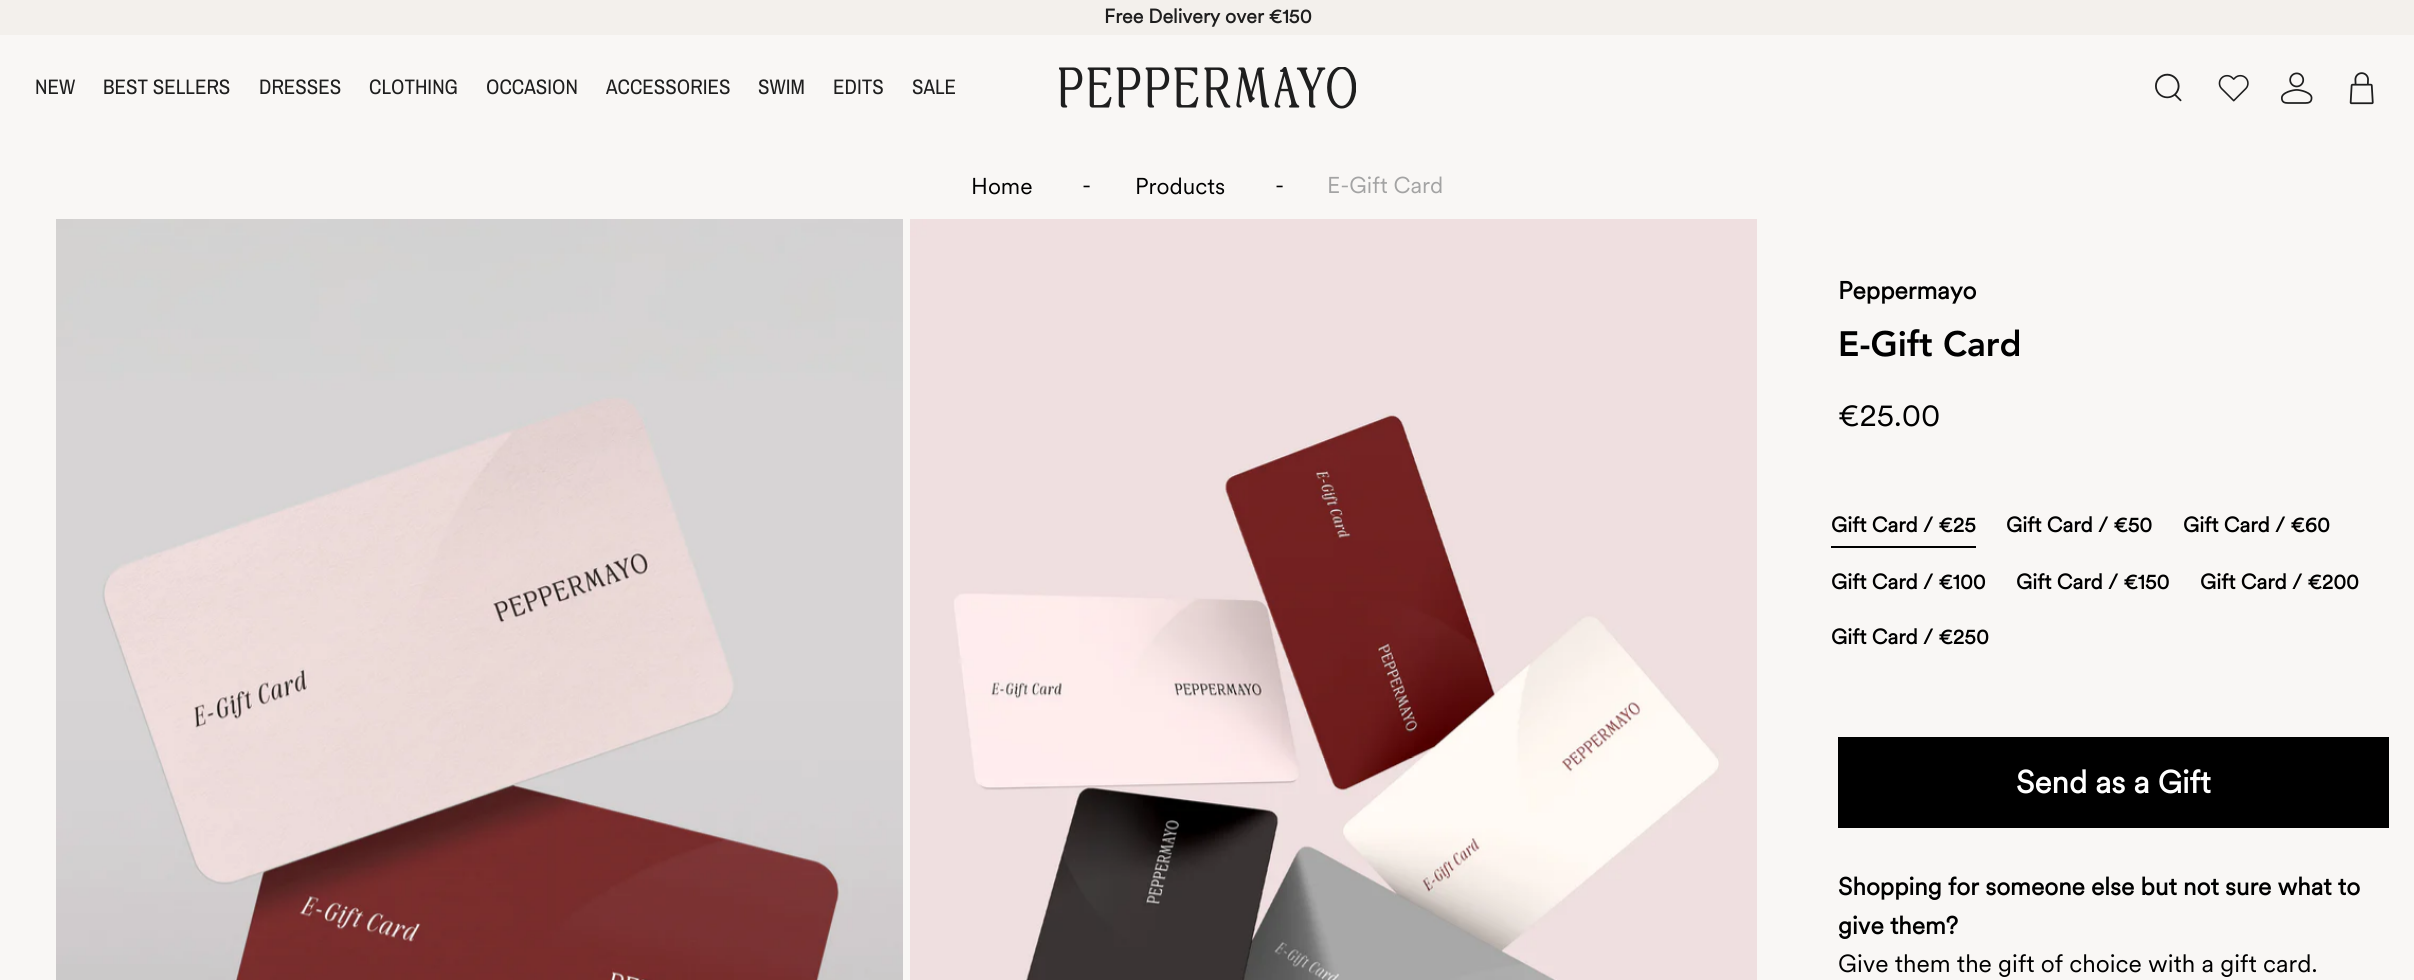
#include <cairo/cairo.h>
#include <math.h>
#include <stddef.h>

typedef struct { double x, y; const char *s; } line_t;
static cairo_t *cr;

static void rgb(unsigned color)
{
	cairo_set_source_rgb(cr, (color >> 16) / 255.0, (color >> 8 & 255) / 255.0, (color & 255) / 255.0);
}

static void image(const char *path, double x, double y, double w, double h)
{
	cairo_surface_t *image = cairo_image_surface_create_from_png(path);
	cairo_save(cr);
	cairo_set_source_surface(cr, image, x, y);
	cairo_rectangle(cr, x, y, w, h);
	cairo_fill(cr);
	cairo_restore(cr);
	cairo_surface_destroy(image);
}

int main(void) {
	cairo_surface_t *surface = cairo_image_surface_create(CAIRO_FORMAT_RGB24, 2414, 980);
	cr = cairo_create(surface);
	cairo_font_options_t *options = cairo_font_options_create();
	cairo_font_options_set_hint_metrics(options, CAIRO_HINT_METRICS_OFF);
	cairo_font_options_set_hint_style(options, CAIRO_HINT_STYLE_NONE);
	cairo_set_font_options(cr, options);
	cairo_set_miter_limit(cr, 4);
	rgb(0xf9f7f5);
	cairo_paint(cr);
	rgb(0xf3f0ec);
	cairo_rectangle(cr, 0, 0, 2414, 35);
	cairo_fill(cr);
	image("img/1.png", 1059, 67, 297, 42);
	image("img/2.png", 2155, 73, 27, 29);
	image("img/3.png", 2218, 74, 31, 28);
	image("img/4.png", 2281, 72, 32, 32);
	image("img/5.png", 2349, 72, 25, 33);
	image("img/6.png", 56, 219, 847, 761);
	image("img/7.png", 910, 219, 847, 761);
	rgb(0x000000);
	cairo_rectangle(cr, 1831, 546, 145, 2);
	cairo_fill(cr);
	cairo_rectangle(cr, 1838, 737, 551, 91);
	cairo_fill(cr);
	cairo_select_font_face(cr, "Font", CAIRO_FONT_SLANT_NORMAL, CAIRO_FONT_WEIGHT_BOLD);
	cairo_set_font_size(cr, 19.6);
	rgb(0x1e1e1e);
	cairo_move_to(cr, 1104, 23);
	cairo_show_text(cr, "Free Delivery over €150");
	cairo_select_font_face(cr, "Archivo Narrow", CAIRO_FONT_SLANT_NORMAL, CAIRO_FONT_WEIGHT_NORMAL);
	cairo_set_font_size(cr, 21);
	{
		static const line_t items[] = {
			{35, 94, "NEW"},
			{103, 94, "BEST SELLERS"},
			{259, 94, "DRESSES"},
			{369, 94, "CLOTHING"},
			{486, 94, "OCCASION"},
			{606, 94, "ACCESSORIES"},
			{758, 94, "SWIM"},
			{833, 94, "EDITS"},
			{912, 94, "SALE"},
		};
		for (size_t i = 0; i < sizeof items / sizeof *items; i++) {
			cairo_move_to(cr, items[i].x, items[i].y);
			cairo_show_text(cr, items[i].s);
		}
	}
	cairo_select_font_face(cr, "Font", CAIRO_FONT_SLANT_NORMAL, CAIRO_FONT_WEIGHT_NORMAL);
	cairo_set_font_size(cr, 22.75);
	rgb(0x000000);
	{
		static const line_t items[] = {
			{971, 194, "Home"},
			{1082, 193, "-"},
			{1135, 194, "Products"},
			{1275, 193, "-"},
		};
		for (size_t i = 0; i < sizeof items / sizeof *items; i++) {
			cairo_move_to(cr, items[i].x, items[i].y);
			cairo_show_text(cr, items[i].s);
		}
	}
	rgb(0xa3a3a3);
	cairo_move_to(cr, 1327, 193);
	cairo_show_text(cr, "E-Gift Card");
	cairo_select_font_face(cr, "Font", CAIRO_FONT_SLANT_NORMAL, CAIRO_FONT_WEIGHT_BOLD);
	cairo_set_font_size(cr, 24.5);
	rgb(0x000000);
	cairo_move_to(cr, 1838, 299);
	cairo_show_text(cr, "Peppermayo");
	cairo_select_font_face(cr, "Avenir Black", CAIRO_FONT_SLANT_NORMAL, CAIRO_FONT_WEIGHT_NORMAL);
	cairo_set_font_size(cr, 35);
	cairo_move_to(cr, 1838, 356);
	cairo_show_text(cr, "E-Gift Card");
	cairo_select_font_face(cr, "Font", CAIRO_FONT_SLANT_NORMAL, CAIRO_FONT_WEIGHT_NORMAL);
	cairo_set_font_size(cr, 31.5);
	cairo_move_to(cr, 1838, 426);
	cairo_show_text(cr, "€25.00");
	cairo_select_font_face(cr, "Font", CAIRO_FONT_SLANT_NORMAL, CAIRO_FONT_WEIGHT_BOLD);
	cairo_set_font_size(cr, 21);
	{
		static const line_t items[] = {
			{1831, 532, "Gift Card / €25"},
			{2006, 532, "Gift Card / €50"},
			{2183, 532, "Gift Card / €60"},
			{1831, 589, "Gift Card / €100"},
			{2016, 589, "Gift Card / €150"},
			{2200, 589, "Gift Card / €200"},
			{1831, 644, "Gift Card / €250"},
		};
		for (size_t i = 0; i < sizeof items / sizeof *items; i++) {
			cairo_move_to(cr, items[i].x, items[i].y);
			cairo_show_text(cr, items[i].s);
		}
	}
	cairo_set_font_size(cr, 31.5);
	rgb(0xffffff);
	cairo_move_to(cr, 2016, 793);
	cairo_show_text(cr, "Send as a Gift");
	cairo_set_font_size(cr, 24.5);
	rgb(0x000000);
	cairo_move_to(cr, 1838, 895);
	cairo_show_text(cr, "Shopping for someone else but not sure what to");
	cairo_move_to(cr, 1838, 934);
	cairo_show_text(cr, "give them?");
	cairo_select_font_face(cr, "Font", CAIRO_FONT_SLANT_NORMAL, CAIRO_FONT_WEIGHT_NORMAL);
	cairo_move_to(cr, 1838, 972);
	cairo_show_text(cr, "Give them the gift of choice with a gift card.");
	cairo_surface_write_to_png(surface, "page.png");
	cairo_font_options_destroy(options);
	cairo_destroy(cr);
	cairo_surface_destroy(surface);
	return 0;
}
